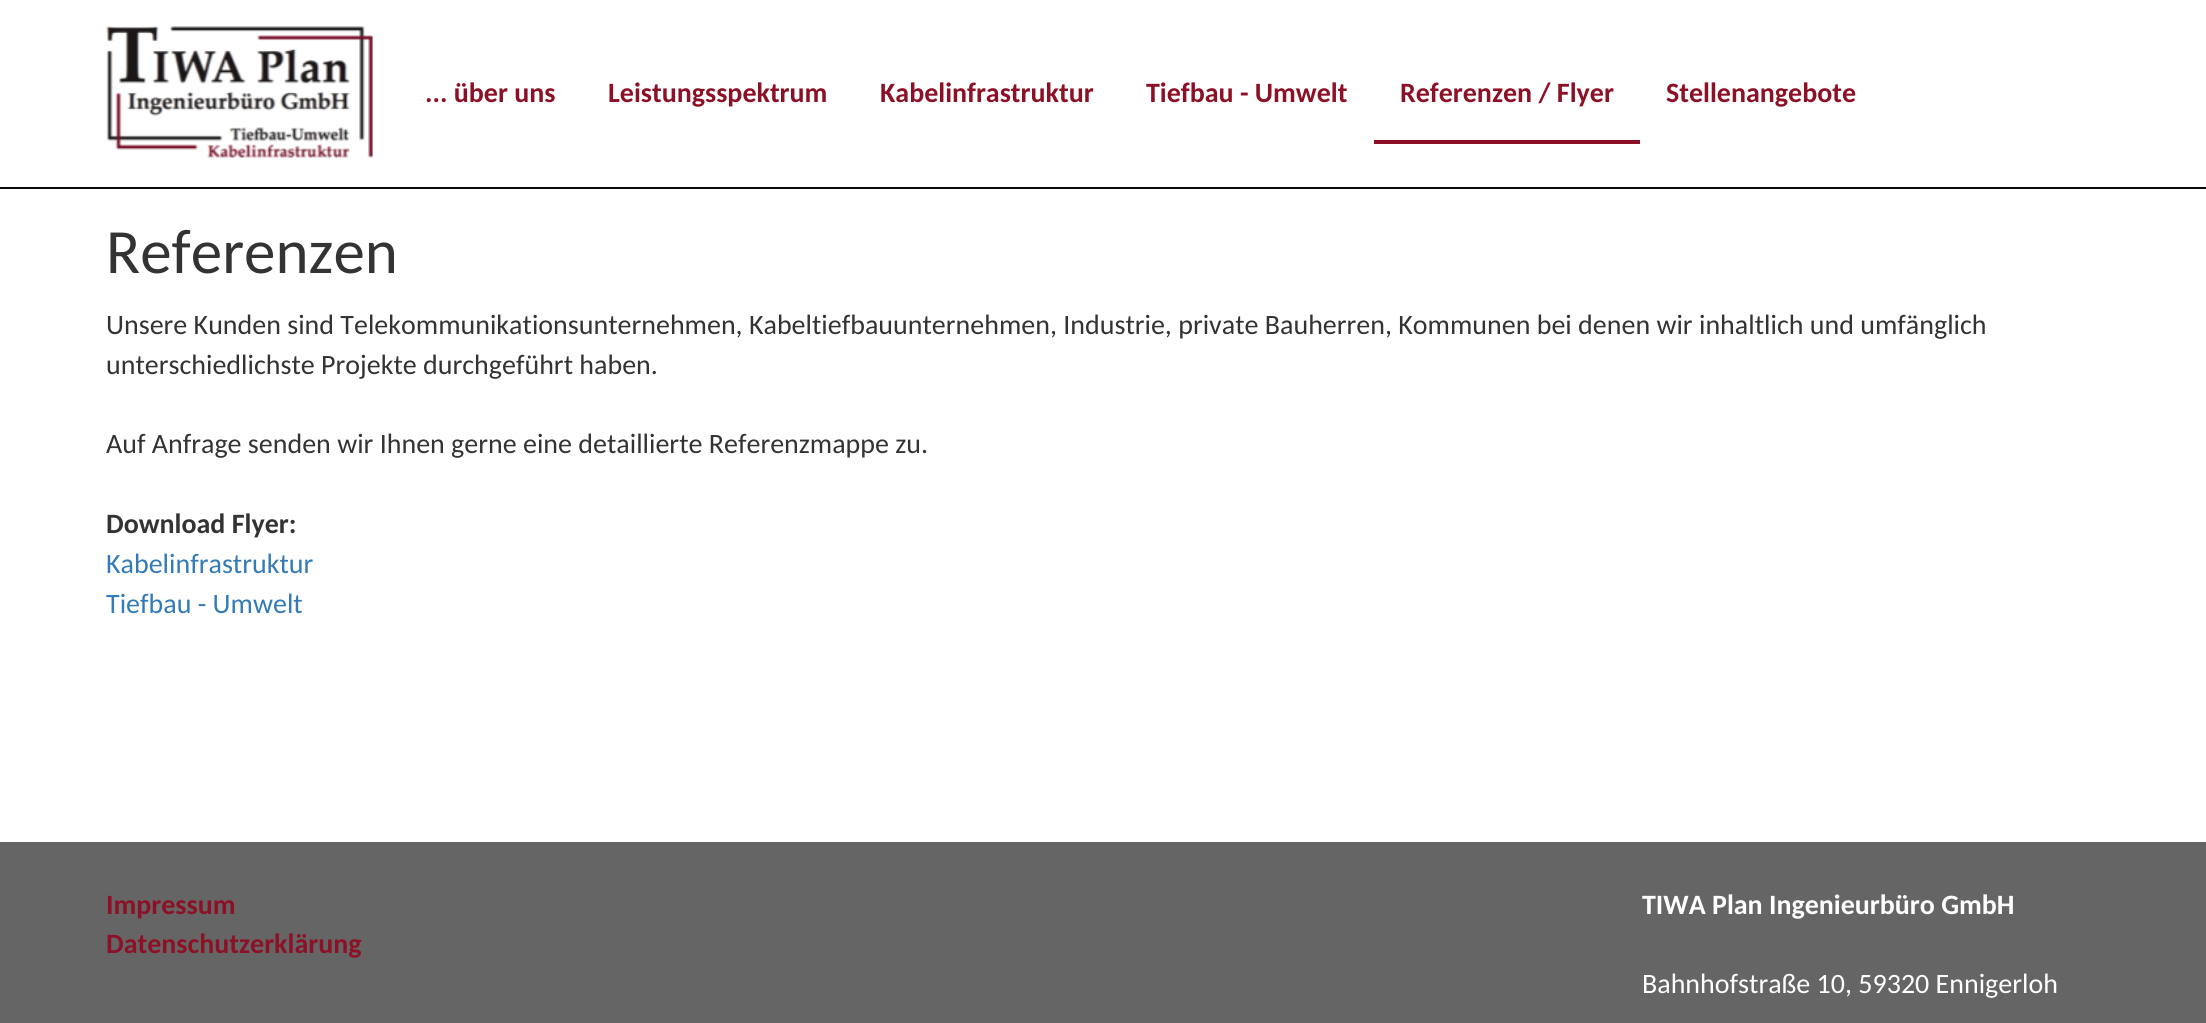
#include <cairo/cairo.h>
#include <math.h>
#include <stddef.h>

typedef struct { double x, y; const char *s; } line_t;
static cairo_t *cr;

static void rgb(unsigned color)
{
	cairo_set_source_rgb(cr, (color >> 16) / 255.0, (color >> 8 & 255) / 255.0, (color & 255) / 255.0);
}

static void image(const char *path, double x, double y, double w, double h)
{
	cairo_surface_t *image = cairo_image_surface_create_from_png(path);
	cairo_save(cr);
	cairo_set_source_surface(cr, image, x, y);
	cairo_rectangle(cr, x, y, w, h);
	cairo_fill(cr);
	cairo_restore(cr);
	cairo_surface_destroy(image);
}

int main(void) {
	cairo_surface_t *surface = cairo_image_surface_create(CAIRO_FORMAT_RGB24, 2206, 1023);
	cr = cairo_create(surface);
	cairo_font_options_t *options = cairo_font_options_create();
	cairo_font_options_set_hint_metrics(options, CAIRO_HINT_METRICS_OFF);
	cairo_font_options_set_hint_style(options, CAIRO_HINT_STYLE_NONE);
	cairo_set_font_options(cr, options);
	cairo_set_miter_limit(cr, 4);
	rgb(0xffffff);
	cairo_paint(cr);
	rgb(0x0c080a);
	cairo_rectangle(cr, 0, 187, 2206, 2);
	cairo_fill(cr);
	image("img/1.png", 106, 26, 267, 132);
	rgb(0x8c1126);
	cairo_rectangle(cr, 1374, 140, 266, 4);
	cairo_fill(cr);
	rgb(0x656565);
	cairo_rectangle(cr, 0, 842, 2206, 181);
	cairo_fill(cr);
	cairo_select_font_face(cr, "Carlito", CAIRO_FONT_SLANT_NORMAL, CAIRO_FONT_WEIGHT_BOLD);
	cairo_set_font_size(cr, 28);
	rgb(0x8c1126);
	{
		static const line_t items[] = {
			{425, 102, "... über uns"},
			{608, 102, "Leistungsspektrum"},
			{880, 102, "Kabelinfrastruktur"},
			{1146, 102, "Tiefbau - Umwelt"},
			{1400, 102, "Referenzen / Flyer"},
			{1666, 102, "Stellenangebote"},
		};
		for (size_t i = 0; i < sizeof items / sizeof *items; i++) {
			cairo_move_to(cr, items[i].x, items[i].y);
			cairo_show_text(cr, items[i].s);
		}
	}
	cairo_select_font_face(cr, "Carlito", CAIRO_FONT_SLANT_NORMAL, CAIRO_FONT_WEIGHT_NORMAL);
	cairo_set_font_size(cr, 63);
	rgb(0x333333);
	cairo_move_to(cr, 106, 273);
	cairo_show_text(cr, "Referenzen");
	cairo_set_font_size(cr, 28);
	{
		static const line_t items[] = {
			{106, 334, "Unsere Kunden sind Telekommunikationsunternehmen, Kabeltiefbauunternehmen, Industrie, private Bauherren, Kommunen bei denen wir inhaltlich und umfänglich"},
			{106, 374, "unterschiedlichste Projekte durchgeführt haben."},
			{106, 453, "Auf Anfrage senden wir Ihnen gerne eine detaillierte Referenzmappe zu."},
		};
		for (size_t i = 0; i < sizeof items / sizeof *items; i++) {
			cairo_move_to(cr, items[i].x, items[i].y);
			cairo_show_text(cr, items[i].s);
		}
	}
	cairo_select_font_face(cr, "Carlito", CAIRO_FONT_SLANT_NORMAL, CAIRO_FONT_WEIGHT_BOLD);
	cairo_move_to(cr, 106, 533);
	cairo_show_text(cr, "Download Flyer:");
	cairo_select_font_face(cr, "Carlito", CAIRO_FONT_SLANT_NORMAL, CAIRO_FONT_WEIGHT_NORMAL);
	rgb(0x337ab7);
	cairo_move_to(cr, 106, 573);
	cairo_show_text(cr, "Kabelinfrastruktur");
	cairo_move_to(cr, 106, 613);
	cairo_show_text(cr, "Tiefbau - Umwelt");
	cairo_select_font_face(cr, "Carlito", CAIRO_FONT_SLANT_NORMAL, CAIRO_FONT_WEIGHT_BOLD);
	rgb(0x8c1126);
	cairo_move_to(cr, 106, 914);
	cairo_show_text(cr, "Impressum");
	cairo_move_to(cr, 106, 953);
	cairo_show_text(cr, "Datenschutzerklärung");
	rgb(0xffffff);
	cairo_move_to(cr, 1642, 914);
	cairo_show_text(cr, "TIWA Plan Ingenieurbüro GmbH");
	cairo_select_font_face(cr, "Carlito", CAIRO_FONT_SLANT_NORMAL, CAIRO_FONT_WEIGHT_NORMAL);
	cairo_move_to(cr, 1642, 993);
	cairo_show_text(cr, "Bahnhofstraße 10, 59320 Ennigerloh");
	cairo_surface_write_to_png(surface, "page.png");
	cairo_font_options_destroy(options);
	cairo_destroy(cr);
	cairo_surface_destroy(surface);
	return 0;
}
